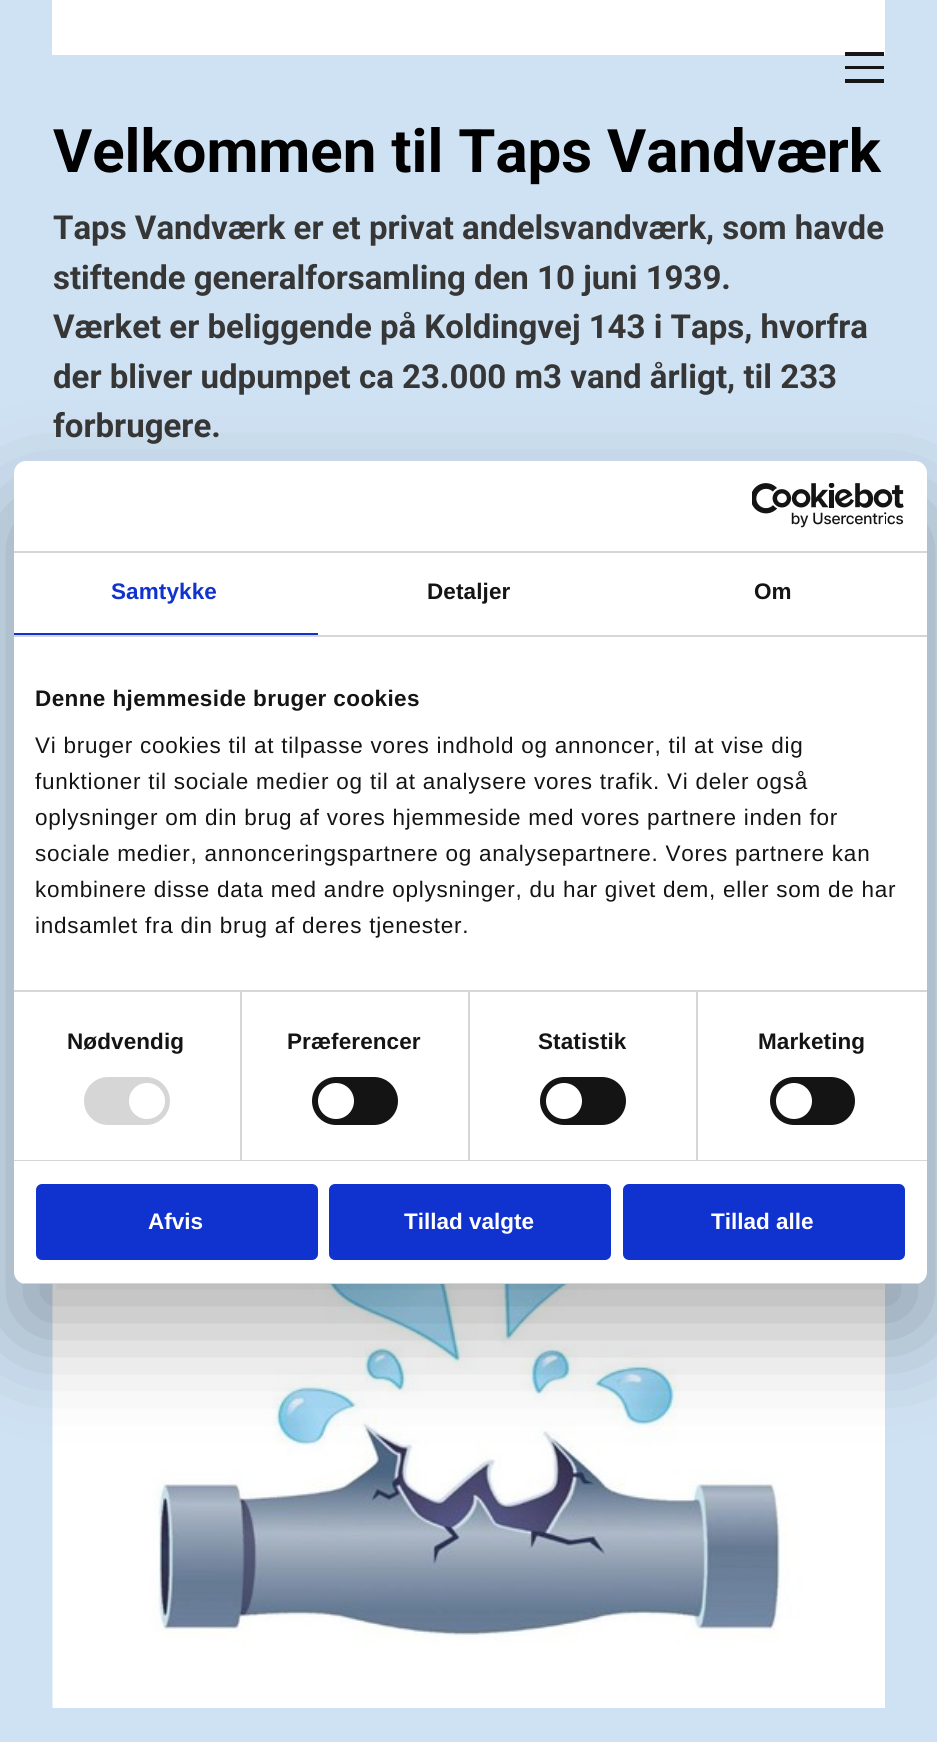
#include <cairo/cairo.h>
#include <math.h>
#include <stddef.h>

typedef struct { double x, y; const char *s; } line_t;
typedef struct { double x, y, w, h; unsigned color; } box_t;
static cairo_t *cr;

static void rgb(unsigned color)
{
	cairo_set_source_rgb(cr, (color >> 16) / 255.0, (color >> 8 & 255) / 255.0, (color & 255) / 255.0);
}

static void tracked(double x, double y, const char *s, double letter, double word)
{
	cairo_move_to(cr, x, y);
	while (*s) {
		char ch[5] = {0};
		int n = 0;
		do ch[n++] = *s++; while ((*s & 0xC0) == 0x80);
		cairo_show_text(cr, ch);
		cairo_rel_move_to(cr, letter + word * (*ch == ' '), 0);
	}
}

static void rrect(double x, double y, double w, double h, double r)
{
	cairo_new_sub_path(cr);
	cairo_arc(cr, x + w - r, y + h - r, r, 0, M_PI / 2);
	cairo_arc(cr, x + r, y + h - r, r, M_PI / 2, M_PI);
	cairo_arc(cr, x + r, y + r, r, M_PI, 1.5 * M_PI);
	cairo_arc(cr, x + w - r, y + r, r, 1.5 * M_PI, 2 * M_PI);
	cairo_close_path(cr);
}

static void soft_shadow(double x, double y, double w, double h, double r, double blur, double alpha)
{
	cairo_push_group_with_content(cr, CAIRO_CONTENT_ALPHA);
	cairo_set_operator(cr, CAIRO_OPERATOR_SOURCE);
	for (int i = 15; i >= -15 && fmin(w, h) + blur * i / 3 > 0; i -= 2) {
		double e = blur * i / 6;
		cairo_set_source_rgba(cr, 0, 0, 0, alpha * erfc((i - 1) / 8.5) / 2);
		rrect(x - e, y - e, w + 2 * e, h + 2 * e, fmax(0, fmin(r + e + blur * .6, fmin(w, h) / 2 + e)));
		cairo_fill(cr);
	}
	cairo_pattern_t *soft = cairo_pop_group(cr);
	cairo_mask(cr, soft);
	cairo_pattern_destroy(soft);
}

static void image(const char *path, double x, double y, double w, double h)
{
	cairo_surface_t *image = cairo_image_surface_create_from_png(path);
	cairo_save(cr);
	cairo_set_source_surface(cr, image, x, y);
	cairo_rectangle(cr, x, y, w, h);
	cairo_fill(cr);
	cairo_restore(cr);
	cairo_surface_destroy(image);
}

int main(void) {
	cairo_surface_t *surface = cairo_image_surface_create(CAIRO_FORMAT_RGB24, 937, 1742);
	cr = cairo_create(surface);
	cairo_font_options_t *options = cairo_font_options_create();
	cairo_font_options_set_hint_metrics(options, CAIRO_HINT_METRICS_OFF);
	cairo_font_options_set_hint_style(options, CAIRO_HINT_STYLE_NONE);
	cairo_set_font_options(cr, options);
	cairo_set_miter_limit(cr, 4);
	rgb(0xcfe2f3);
	cairo_paint(cr);
	{
		static const box_t items[] = {
			{52, 0, 833, 55, 0xffffff},
			{845, 52, 39, 4, 0x161615},
			{845, 66, 39, 3, 0x161615},
			{845, 79, 39, 4, 0x161615},
		};
		for (size_t i = 0; i < sizeof items / sizeof *items; i++) {
			rgb(items[i].color);
			cairo_rectangle(cr, items[i].x, items[i].y, items[i].w, items[i].h);
			cairo_fill(cr);
		}
	}
	image("img/1.png", 52, 1284, 833, 424);
	rgb(0x000000);
	soft_shadow(14, 509, 913, 823, 12, 51, 0.3);
	rgb(0xffffff);
	rrect(14, 461, 913, 823, 12);
	cairo_fill(cr);
	rgb(0xd6d6d6);
	cairo_rectangle(cr, 14, 551, 913, 2);
	cairo_fill(cr);
	image("img/2.png", 752, 483, 152, 45);
	{
		static const box_t items[] = {
			{14, 635, 913, 2, 0xd6d6d6},
			{14, 633, 304, 2, 0x1032cf},
			{14, 990, 913, 2, 0xd6d6d6},
			{14, 1160, 913, 1, 0xd6d6d6},
			{240, 992, 2, 168, 0xd6d6d6},
		};
		for (size_t i = 0; i < sizeof items / sizeof *items; i++) {
			rgb(items[i].color);
			cairo_rectangle(cr, items[i].x, items[i].y, items[i].w, items[i].h);
			cairo_fill(cr);
		}
	}
	rrect(84, 1077, 86, 48, 24);
	cairo_fill(cr);
	rgb(0xffffff);
	cairo_arc(cr, 147, 1101, 18, 0, 2 * M_PI);
	cairo_fill(cr);
	rgb(0xd6d6d6);
	cairo_rectangle(cr, 468, 992, 2, 168);
	cairo_fill(cr);
	rgb(0x141414);
	rrect(312, 1077, 86, 48, 24);
	cairo_fill(cr);
	rgb(0xffffff);
	cairo_arc(cr, 336, 1101, 18, 0, 2 * M_PI);
	cairo_fill(cr);
	rgb(0xd6d6d6);
	cairo_rectangle(cr, 696, 992, 2, 168);
	cairo_fill(cr);
	rgb(0x141414);
	rrect(540, 1077, 86, 48, 24);
	cairo_fill(cr);
	rgb(0xffffff);
	cairo_arc(cr, 564, 1101, 18, 0, 2 * M_PI);
	cairo_fill(cr);
	rgb(0x141414);
	rrect(770, 1077, 85, 48, 24);
	cairo_fill(cr);
	rgb(0xffffff);
	cairo_arc(cr, 794, 1101, 18, 0, 2 * M_PI);
	cairo_fill(cr);
	cairo_save(cr);
	rrect(14, 461, 913, 823, 12);
	cairo_clip(cr);
	rgb(0xd6d6d6);
	cairo_rectangle(cr, 14, 1283, 913, 1);
	cairo_fill(cr);
	cairo_restore(cr);
	rgb(0x1032cf);
	rrect(37.5, 1185.5, 279, 73, 4.5);
	cairo_fill_preserve(cr);
	cairo_set_line_width(cr, 3);
	cairo_stroke(cr);
	rrect(330.5, 1185.5, 279, 73, 4.5);
	cairo_fill_preserve(cr);
	cairo_stroke(cr);
	rrect(624.5, 1185.5, 279, 73, 4.5);
	cairo_fill_preserve(cr);
	cairo_stroke(cr);
	cairo_select_font_face(cr, "Roboto", CAIRO_FONT_SLANT_NORMAL, CAIRO_FONT_WEIGHT_BOLD);
	cairo_set_font_size(cr, 60);
	rgb(0x000000);
	cairo_move_to(cr, 53, 172);
	cairo_show_text(cr, "Velkommen til Taps Vandværk");
	cairo_set_font_size(cr, 33);
	rgb(0x363636);
	{
		static const line_t items[] = {
			{53, 239, "Taps Vandværk er et privat andelsvandværk, som havde"},
			{53, 289, "stiftende generalforsamling den 10 juni 1939."},
			{53, 338, "Værket er beliggende på Koldingvej 143 i Taps, hvorfra"},
			{53, 388, "der bliver udpumpet ca 23.000 m3 vand årligt, til 233"},
			{53, 437, "forbrugere."},
		};
		for (size_t i = 0; i < sizeof items / sizeof *items; i++) {
			cairo_move_to(cr, items[i].x, items[i].y);
			cairo_show_text(cr, items[i].s);
		}
	}
	cairo_select_font_face(cr, "Liberation Sans", CAIRO_FONT_SLANT_NORMAL, CAIRO_FONT_WEIGHT_BOLD);
	cairo_set_font_size(cr, 22.5);
	rgb(0x1032cf);
	tracked(111, 599, "Samtykke", 0.1, 0);
	rgb(0x141414);
	tracked(427, 599, "Detaljer", 0.1, 0);
	tracked(754, 599, "Om", 0.1, 0);
	tracked(35, 706, "Denne hjemmeside bruger cookies", 0.4, 0);
	cairo_select_font_face(cr, "Liberation Sans", CAIRO_FONT_SLANT_NORMAL, CAIRO_FONT_WEIGHT_NORMAL);
	{
		static const line_t items[] = {
			{35, 753, "Vi bruger cookies til at tilpasse vores indhold og annoncer, til at vise dig"},
			{35, 789, "funktioner til sociale medier og til at analysere vores trafik. Vi deler også"},
			{35, 825, "oplysninger om din brug af vores hjemmeside med vores partnere inden for"},
			{35, 861, "sociale medier, annonceringspartnere og analysepartnere. Vores partnere kan"},
			{35, 897, "kombinere disse data med andre oplysninger, du har givet dem, eller som de har"},
			{35, 933, "indsamlet fra din brug af deres tjenester."},
		};
		for (size_t i = 0; i < sizeof items / sizeof *items; i++) {
			tracked(items[i].x, items[i].y, items[i].s, 0.75, 0);
		}
	}
	cairo_select_font_face(cr, "Liberation Sans", CAIRO_FONT_SLANT_NORMAL, CAIRO_FONT_WEIGHT_BOLD);
	{
		static const line_t items[] = {
			{67, 1049, "Nødvendig"},
			{287, 1049, "Præferencer"},
			{538, 1049, "Statistik"},
			{758, 1049, "Marketing"},
		};
		for (size_t i = 0; i < sizeof items / sizeof *items; i++) {
			tracked(items[i].x, items[i].y, items[i].s, 0.1, 0);
		}
	}
	rgb(0xffffff);
	{
		static const line_t items[] = {
			{148, 1229, "Afvis"},
			{404, 1229, "Tillad valgte"},
			{711, 1229, "Tillad alle"},
		};
		for (size_t i = 0; i < sizeof items / sizeof *items; i++) {
			cairo_move_to(cr, items[i].x, items[i].y);
			cairo_show_text(cr, items[i].s);
		}
	}
	cairo_surface_write_to_png(surface, "page.png");
	cairo_font_options_destroy(options);
	cairo_destroy(cr);
	cairo_surface_destroy(surface);
	return 0;
}
